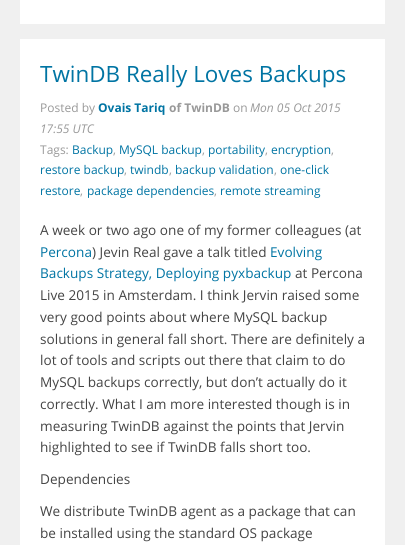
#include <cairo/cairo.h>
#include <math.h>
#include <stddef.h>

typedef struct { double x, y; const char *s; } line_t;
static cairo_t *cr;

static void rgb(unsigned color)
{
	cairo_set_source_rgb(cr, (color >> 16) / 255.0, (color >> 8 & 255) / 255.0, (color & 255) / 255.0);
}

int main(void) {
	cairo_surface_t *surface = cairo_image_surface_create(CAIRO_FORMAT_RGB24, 405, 545);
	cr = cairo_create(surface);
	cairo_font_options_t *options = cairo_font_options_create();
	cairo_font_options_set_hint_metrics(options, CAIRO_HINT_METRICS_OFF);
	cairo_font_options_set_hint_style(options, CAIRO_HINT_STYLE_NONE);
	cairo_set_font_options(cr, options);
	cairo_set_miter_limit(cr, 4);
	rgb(0xf0f0f0);
	cairo_paint(cr);
	rgb(0xffffff);
	cairo_rectangle(cr, 20, 0, 365, 24);
	cairo_fill(cr);
	cairo_rectangle(cr, 20, 39, 365, 506);
	cairo_fill(cr);
	cairo_select_font_face(cr, "Open Sans", CAIRO_FONT_SLANT_NORMAL, CAIRO_FONT_WEIGHT_NORMAL);
	cairo_set_font_size(cr, 22.4);
	rgb(0x0074a3);
	cairo_move_to(cr, 40, 82);
	cairo_show_text(cr, "TwinDB Really Loves Backups");
	cairo_set_font_size(cr, 12);
	rgb(0x999999);
	cairo_move_to(cr, 40, 112);
	cairo_show_text(cr, "Posted by");
	cairo_select_font_face(cr, "Open Sans", CAIRO_FONT_SLANT_NORMAL, CAIRO_FONT_WEIGHT_BOLD);
	rgb(0x0074a3);
	cairo_move_to(cr, 98, 112);
	cairo_show_text(cr, "Ovais Tariq");
	rgb(0x999999);
	cairo_move_to(cr, 169, 112);
	cairo_show_text(cr, "of TwinDB");
	cairo_select_font_face(cr, "Open Sans", CAIRO_FONT_SLANT_NORMAL, CAIRO_FONT_WEIGHT_NORMAL);
	cairo_move_to(cr, 233, 112);
	cairo_show_text(cr, "on");
	cairo_select_font_face(cr, "Open Sans", CAIRO_FONT_SLANT_ITALIC, CAIRO_FONT_WEIGHT_NORMAL);
	cairo_move_to(cr, 250, 112);
	cairo_show_text(cr, "Mon 05 Oct 2015");
	cairo_move_to(cr, 40, 133);
	cairo_show_text(cr, "17:55 UTC");
	cairo_select_font_face(cr, "Open Sans", CAIRO_FONT_SLANT_NORMAL, CAIRO_FONT_WEIGHT_NORMAL);
	cairo_move_to(cr, 40, 154);
	cairo_show_text(cr, "Tags:");
	rgb(0x0074a3);
	cairo_move_to(cr, 72, 154);
	cairo_show_text(cr, "Backup");
	rgb(0x999999);
	cairo_move_to(cr, 113, 154);
	cairo_show_text(cr, ",");
	rgb(0x0074a3);
	cairo_move_to(cr, 119, 154);
	cairo_show_text(cr, "MySQL backup");
	rgb(0x999999);
	cairo_move_to(cr, 202, 154);
	cairo_show_text(cr, ",");
	rgb(0x0074a3);
	cairo_move_to(cr, 208, 154);
	cairo_show_text(cr, "portability");
	rgb(0x999999);
	cairo_move_to(cr, 265, 154);
	cairo_show_text(cr, ",");
	rgb(0x0074a3);
	cairo_move_to(cr, 271, 154);
	cairo_show_text(cr, "encryption");
	rgb(0x999999);
	cairo_move_to(cr, 331, 154);
	cairo_show_text(cr, ",");
	rgb(0x0074a3);
	cairo_move_to(cr, 40, 174);
	cairo_show_text(cr, "restore backup");
	rgb(0x999999);
	cairo_move_to(cr, 124, 174);
	cairo_show_text(cr, ",");
	rgb(0x0074a3);
	cairo_move_to(cr, 130, 174);
	cairo_show_text(cr, "twindb");
	rgb(0x999999);
	cairo_move_to(cr, 169, 174);
	cairo_show_text(cr, ",");
	rgb(0x0074a3);
	cairo_move_to(cr, 175, 174);
	cairo_show_text(cr, "backup validation");
	rgb(0x999999);
	cairo_move_to(cr, 274, 174);
	cairo_show_text(cr, ",");
	rgb(0x0074a3);
	cairo_move_to(cr, 280, 174);
	cairo_show_text(cr, "one-click");
	cairo_move_to(cr, 40, 195);
	cairo_show_text(cr, "restore");
	rgb(0x999999);
	cairo_move_to(cr, 80, 195);
	cairo_show_text(cr, ",");
	rgb(0x0074a3);
	cairo_move_to(cr, 87, 195);
	cairo_show_text(cr, "package dependencies");
	rgb(0x999999);
	cairo_move_to(cr, 214, 195);
	cairo_show_text(cr, ",");
	rgb(0x0074a3);
	cairo_move_to(cr, 220, 195);
	cairo_show_text(cr, "remote streaming");
	cairo_set_font_size(cr, 13.6);
	rgb(0x444444);
	cairo_move_to(cr, 40, 235);
	cairo_show_text(cr, "A week or two ago one of my former colleagues (at");
	rgb(0x0074a3);
	cairo_move_to(cr, 40, 257);
	cairo_show_text(cr, "Percona");
	rgb(0x444444);
	cairo_move_to(cr, 92, 257);
	cairo_show_text(cr, ") Jevin Real gave a talk titled");
	rgb(0x0074a3);
	cairo_move_to(cr, 270, 257);
	cairo_show_text(cr, "Evolving");
	cairo_move_to(cr, 40, 278);
	cairo_show_text(cr, "Backups Strategy, Deploying pyxbackup");
	rgb(0x444444);
	{
		static const line_t items[] = {
			{295, 278, "at Percona"},
			{40, 300, "Live 2015 in Amsterdam. I think Jervin raised some"},
			{40, 322, "very good points about where MySQL backup"},
			{40, 344, "solutions in general fall short. There are definitely a"},
			{40, 365, "lot of tools and scripts out there that claim to do"},
			{40, 387, "MySQL backups correctly, but don’t actually do it"},
			{40, 409, "correctly. What I am more interested though is in"},
			{40, 431, "measuring TwinDB against the points that Jervin"},
			{40, 452, "highlighted to see if TwinDB falls short too."},
			{40, 484, "Dependencies"},
			{40, 516, "We distribute TwinDB agent as a package that can"},
			{40, 538, "be installed using the standard OS package"},
		};
		for (size_t i = 0; i < sizeof items / sizeof *items; i++) {
			cairo_move_to(cr, items[i].x, items[i].y);
			cairo_show_text(cr, items[i].s);
		}
	}
	cairo_surface_write_to_png(surface, "page.png");
	cairo_font_options_destroy(options);
	cairo_destroy(cr);
	cairo_surface_destroy(surface);
	return 0;
}
